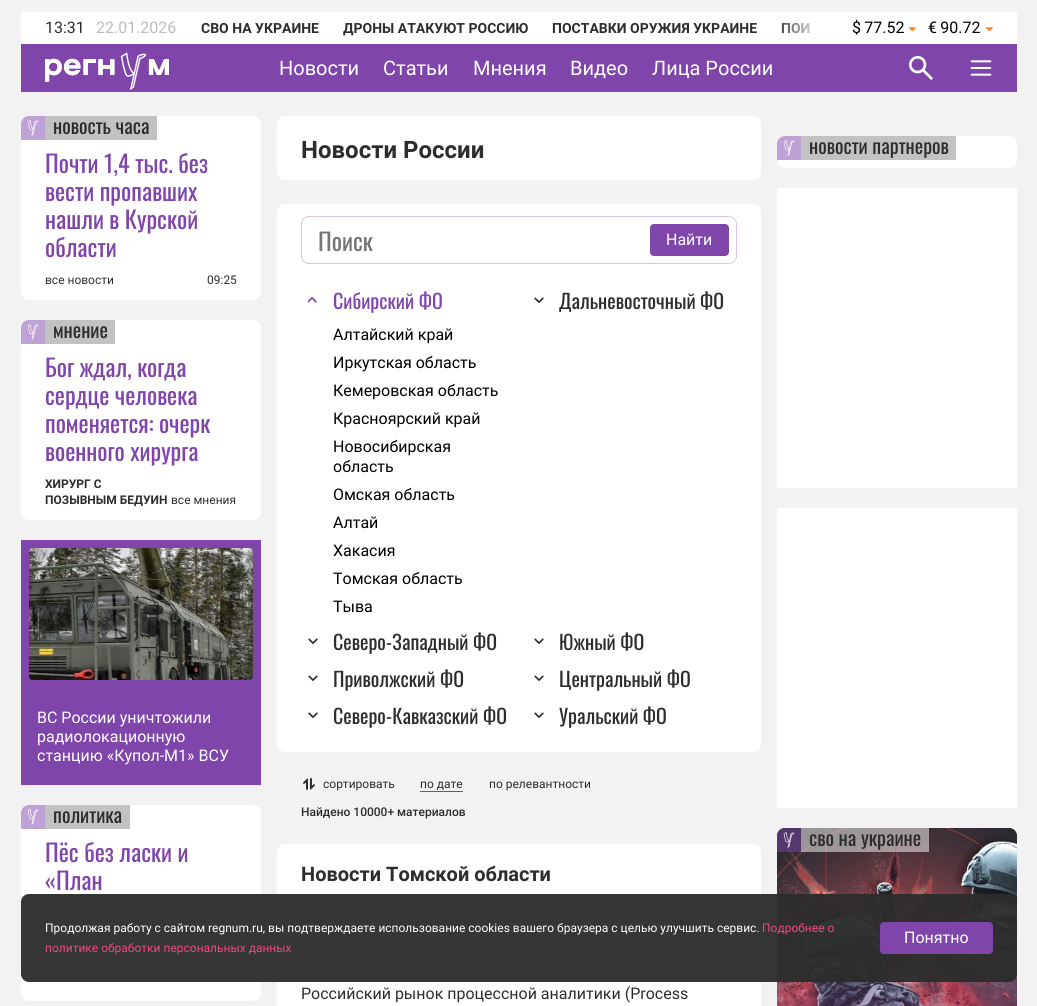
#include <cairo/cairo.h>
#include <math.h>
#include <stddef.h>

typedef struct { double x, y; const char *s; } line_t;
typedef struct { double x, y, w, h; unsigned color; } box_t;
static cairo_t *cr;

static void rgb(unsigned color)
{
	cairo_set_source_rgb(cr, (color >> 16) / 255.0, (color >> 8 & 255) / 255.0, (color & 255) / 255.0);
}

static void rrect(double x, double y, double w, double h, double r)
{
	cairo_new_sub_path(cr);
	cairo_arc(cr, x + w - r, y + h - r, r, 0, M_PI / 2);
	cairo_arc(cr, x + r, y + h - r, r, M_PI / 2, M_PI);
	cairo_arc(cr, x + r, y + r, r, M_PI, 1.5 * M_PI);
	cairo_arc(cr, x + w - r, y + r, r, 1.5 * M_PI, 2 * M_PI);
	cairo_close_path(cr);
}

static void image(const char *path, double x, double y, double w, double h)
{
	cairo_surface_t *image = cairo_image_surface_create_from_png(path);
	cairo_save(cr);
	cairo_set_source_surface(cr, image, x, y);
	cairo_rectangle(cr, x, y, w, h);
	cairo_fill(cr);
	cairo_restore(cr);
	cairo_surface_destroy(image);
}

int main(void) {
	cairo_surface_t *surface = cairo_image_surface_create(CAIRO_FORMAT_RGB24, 1037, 1006);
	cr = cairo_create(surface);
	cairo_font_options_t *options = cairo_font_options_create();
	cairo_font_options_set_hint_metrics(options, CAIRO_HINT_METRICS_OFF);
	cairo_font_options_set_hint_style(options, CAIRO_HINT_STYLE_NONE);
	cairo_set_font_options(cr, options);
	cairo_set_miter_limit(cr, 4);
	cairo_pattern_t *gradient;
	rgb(0xf2f2f2);
	cairo_paint(cr);
	rgb(0xffffff);
	cairo_rectangle(cr, 21, 12, 996, 32);
	cairo_fill(cr);
	image("img/1.png", 909, 27, 7, 5);
	image("img/1.png", 986, 27, 7, 5);
	rgb(0x7f45aa);
	cairo_rectangle(cr, 21, 44, 996, 48);
	cairo_fill(cr);
	image("img/2.png", 45, 52, 124, 39);
	image("img/3.png", 909, 56, 24, 24);
	image("img/4.png", 970, 60, 22, 16);
	rgb(0xffffff);
	rrect(21, 116, 240, 184, 8);
	cairo_fill(cr);
	image("img/5.png", 21, 116, 24, 24);
	rgb(0xc2c2c2);
	cairo_rectangle(cr, 45, 116, 112, 24);
	cairo_fill(cr);
	rgb(0xffffff);
	rrect(21, 320, 240, 200, 8);
	cairo_fill(cr);
	image("img/5.png", 21, 320, 24, 24);
	rgb(0xc2c2c2);
	cairo_rectangle(cr, 45, 320, 70, 24);
	cairo_fill(cr);
	rgb(0x7f45aa);
	cairo_rectangle(cr, 21, 540, 240, 245);
	cairo_fill(cr);
	image("img/6.png", 29, 548, 224, 132);
	rgb(0xffffff);
	rrect(21, 805, 240, 196, 8);
	cairo_fill(cr);
	image("img/5.png", 21, 805, 24, 24);
	rgb(0xc2c2c2);
	cairo_rectangle(cr, 45, 805, 85, 24);
	cairo_fill(cr);
	rgb(0xffffff);
	rrect(277, 116, 484, 64, 8);
	cairo_fill(cr);
	rrect(277, 204, 484, 548, 8);
	cairo_fill(cr);
	rrect(301.5, 216.5, 435, 47, 7.5);
	rgb(0xd8c7e6);
	cairo_set_line_width(cr, 1);
	cairo_stroke(cr);
	rgb(0x7f45aa);
	rrect(650, 224, 79, 32, 4);
	cairo_fill(cr);
	image("img/7.png", 308, 297, 9, 6);
	image("img/8.png", 534, 297, 10, 6);
	image("img/8.png", 308, 638, 10, 6);
	image("img/8.png", 534, 638, 10, 6);
	image("img/8.png", 308, 675, 10, 6);
	image("img/8.png", 534, 675, 10, 6);
	image("img/8.png", 308, 712, 10, 6);
	image("img/8.png", 534, 712, 10, 6);
	image("img/9.png", 303, 778, 12, 12);
	cairo_rectangle(cr, 420, 791, 43, 1);
	cairo_fill(cr);
	rgb(0xffffff);
	rrect(277, 844, 484, 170, 8);
	cairo_fill(cr);
	rrect(777, 136, 240, 32, 8);
	cairo_fill(cr);
	image("img/5.png", 777, 136, 24, 24);
	{
		static const box_t items[] = {
			{801, 136, 155, 24, 0xc2c2c2},
			{777, 188, 240, 300, 0xffffff},
			{777, 508, 240, 300, 0xffffff},
		};
		for (size_t i = 0; i < sizeof items / sizeof *items; i++) {
			rgb(items[i].color);
			cairo_rectangle(cr, items[i].x, items[i].y, items[i].w, items[i].h);
			cairo_fill(cr);
		}
	}
	rgb(0x2d2d2d);
	rrect(777, 828, 240, 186, 8);
	cairo_fill(cr);
	image("img/10.png", 777, 828, 240, 178);
	image("img/11.png", 777, 828, 24, 24);
	cairo_set_source_rgba(cr, 1, 1, 1, 0.5);
	cairo_rectangle(cr, 801, 828, 128, 24);
	cairo_fill(cr);
	cairo_set_source_rgba(cr, 0.176, 0.176, 0.176, 0.95);
	rrect(21, 894, 996, 88, 8);
	cairo_fill(cr);
	rgb(0x7f45aa);
	rrect(880, 922, 113, 32, 4);
	cairo_fill(cr);
	cairo_select_font_face(cr, "Roboto", CAIRO_FONT_SLANT_NORMAL, CAIRO_FONT_WEIGHT_NORMAL);
	cairo_set_font_size(cr, 16);
	rgb(0x2d2d2d);
	cairo_move_to(cr, 45, 33);
	cairo_show_text(cr, "13:31");
	rgb(0xbcbcbc);
	cairo_move_to(cr, 96, 33);
	cairo_show_text(cr, "22.01.2026");
	cairo_select_font_face(cr, "Roboto", CAIRO_FONT_SLANT_NORMAL, CAIRO_FONT_WEIGHT_BOLD);
	cairo_set_font_size(cr, 14);
	rgb(0x2d2d2d);
	{
		static const line_t items[] = {
			{201, 33, "СВО НА УКРАИНЕ"},
			{343, 33, "ДРОНЫ АТАКУЮТ РОССИЮ"},
			{552, 33, "ПОСТАВКИ ОРУЖИЯ УКРАИНЕ"},
			{781, 33, "ПОИ"},
		};
		for (size_t i = 0; i < sizeof items / sizeof *items; i++) {
			cairo_move_to(cr, items[i].x, items[i].y);
			cairo_show_text(cr, items[i].s);
		}
	}
	gradient = cairo_pattern_create_linear(841, 28, 775, 28);
	cairo_pattern_add_color_stop_rgba(gradient, 0.28, 1, 1, 1, 1);
	cairo_pattern_add_color_stop_rgba(gradient, 1, 1, 1, 1, 0);
	cairo_set_source(cr, gradient);
	cairo_pattern_destroy(gradient);
	cairo_rectangle(cr, 782, 22, 28, 12);
	cairo_fill(cr);
	cairo_select_font_face(cr, "Roboto", CAIRO_FONT_SLANT_NORMAL, CAIRO_FONT_WEIGHT_NORMAL);
	cairo_set_font_size(cr, 16);
	rgb(0x000000);
	cairo_move_to(cr, 852, 33);
	cairo_show_text(cr, "$ 77.52");
	cairo_move_to(cr, 928, 33);
	cairo_show_text(cr, "€ 90.72");
	cairo_set_font_size(cr, 20);
	rgb(0xffffff);
	{
		static const line_t items[] = {
			{279, 75, "Новости"},
			{383, 75, "Статьи"},
			{473, 75, "Мнения"},
			{570, 75, "Видео"},
			{652, 75, "Лица России"},
		};
		for (size_t i = 0; i < sizeof items / sizeof *items; i++) {
			cairo_move_to(cr, items[i].x, items[i].y);
			cairo_show_text(cr, items[i].s);
		}
	}
	cairo_select_font_face(cr, "Oswald", CAIRO_FONT_SLANT_NORMAL, CAIRO_FONT_WEIGHT_NORMAL);
	rgb(0x2d2d2d);
	cairo_move_to(cr, 53, 134);
	cairo_show_text(cr, "новость часа");
	cairo_set_font_size(cr, 24);
	rgb(0x7f45aa);
	{
		static const line_t items[] = {
			{45, 173, "Почти 1,4 тыс. без"},
			{45, 201, "вести пропавших"},
			{45, 229, "нашли в Курской"},
			{45, 257, "области"},
		};
		for (size_t i = 0; i < sizeof items / sizeof *items; i++) {
			cairo_move_to(cr, items[i].x, items[i].y);
			cairo_show_text(cr, items[i].s);
		}
	}
	cairo_select_font_face(cr, "Roboto", CAIRO_FONT_SLANT_NORMAL, CAIRO_FONT_WEIGHT_NORMAL);
	cairo_set_font_size(cr, 12);
	rgb(0x2d2d2d);
	cairo_move_to(cr, 45, 284);
	cairo_show_text(cr, "все новости");
	cairo_move_to(cr, 207, 284);
	cairo_show_text(cr, "09:25");
	cairo_select_font_face(cr, "Oswald", CAIRO_FONT_SLANT_NORMAL, CAIRO_FONT_WEIGHT_NORMAL);
	cairo_set_font_size(cr, 20);
	cairo_move_to(cr, 53, 338);
	cairo_show_text(cr, "мнение");
	cairo_set_font_size(cr, 24);
	rgb(0x7f45aa);
	{
		static const line_t items[] = {
			{45, 377, "Бог ждал, когда"},
			{45, 405, "сердце человека"},
			{45, 433, "поменяется: очерк"},
			{45, 461, "военного хирурга"},
		};
		for (size_t i = 0; i < sizeof items / sizeof *items; i++) {
			cairo_move_to(cr, items[i].x, items[i].y);
			cairo_show_text(cr, items[i].s);
		}
	}
	cairo_select_font_face(cr, "Roboto", CAIRO_FONT_SLANT_NORMAL, CAIRO_FONT_WEIGHT_BOLD);
	cairo_set_font_size(cr, 12);
	rgb(0x2d2d2d);
	cairo_move_to(cr, 45, 488);
	cairo_show_text(cr, "ХИРУРГ С");
	cairo_move_to(cr, 45, 504);
	cairo_show_text(cr, "ПОЗЫВНЫМ БЕДУИН");
	cairo_select_font_face(cr, "Roboto", CAIRO_FONT_SLANT_NORMAL, CAIRO_FONT_WEIGHT_NORMAL);
	cairo_move_to(cr, 171, 504);
	cairo_show_text(cr, "все мнения");
	cairo_set_font_size(cr, 16);
	rgb(0xffffff);
	{
		static const line_t items[] = {
			{37, 723, "ВС России уничтожили"},
			{37, 742, "радиолокационную"},
			{37, 761, "станцию «Купол-М1» ВСУ"},
		};
		for (size_t i = 0; i < sizeof items / sizeof *items; i++) {
			cairo_move_to(cr, items[i].x, items[i].y);
			cairo_show_text(cr, items[i].s);
		}
	}
	cairo_select_font_face(cr, "Oswald", CAIRO_FONT_SLANT_NORMAL, CAIRO_FONT_WEIGHT_NORMAL);
	cairo_set_font_size(cr, 20);
	rgb(0x2d2d2d);
	cairo_move_to(cr, 53, 823);
	cairo_show_text(cr, "политика");
	cairo_set_font_size(cr, 24);
	rgb(0x7f45aa);
	cairo_move_to(cr, 45, 862);
	cairo_show_text(cr, "Пёс без ласки и");
	cairo_move_to(cr, 45, 890);
	cairo_show_text(cr, "«План");
	cairo_select_font_face(cr, "Roboto", CAIRO_FONT_SLANT_NORMAL, CAIRO_FONT_WEIGHT_BOLD);
	rgb(0x2d2d2d);
	cairo_move_to(cr, 301, 158);
	cairo_show_text(cr, "Новости России");
	cairo_select_font_face(cr, "Oswald", CAIRO_FONT_SLANT_NORMAL, CAIRO_FONT_WEIGHT_NORMAL);
	rgb(0x757575);
	cairo_move_to(cr, 318, 251);
	cairo_show_text(cr, "Поиск");
	cairo_select_font_face(cr, "Roboto", CAIRO_FONT_SLANT_NORMAL, CAIRO_FONT_WEIGHT_NORMAL);
	cairo_set_font_size(cr, 16);
	rgb(0xffffff);
	cairo_move_to(cr, 666, 245);
	cairo_show_text(cr, "Найти");
	cairo_select_font_face(cr, "Oswald", CAIRO_FONT_SLANT_NORMAL, CAIRO_FONT_WEIGHT_NORMAL);
	cairo_set_font_size(cr, 20);
	rgb(0x7f45aa);
	cairo_move_to(cr, 333, 309);
	cairo_show_text(cr, "Сибирский ФО");
	cairo_select_font_face(cr, "Roboto", CAIRO_FONT_SLANT_NORMAL, CAIRO_FONT_WEIGHT_NORMAL);
	cairo_set_font_size(cr, 16);
	rgb(0x000000);
	{
		static const line_t items[] = {
			{333, 340, "Алтайский край"},
			{333, 368, "Иркутская область"},
			{333, 396, "Кемеровская область"},
			{333, 424, "Красноярский край"},
			{333, 452, "Новосибирская"},
			{333, 472, "область"},
			{333, 500, "Омская область"},
			{333, 528, "Алтай"},
			{333, 556, "Хакасия"},
			{333, 584, "Томская область"},
			{333, 612, "Тыва"},
		};
		for (size_t i = 0; i < sizeof items / sizeof *items; i++) {
			cairo_move_to(cr, items[i].x, items[i].y);
			cairo_show_text(cr, items[i].s);
		}
	}
	cairo_select_font_face(cr, "Oswald", CAIRO_FONT_SLANT_NORMAL, CAIRO_FONT_WEIGHT_NORMAL);
	cairo_set_font_size(cr, 20);
	rgb(0x2d2d2d);
	{
		static const line_t items[] = {
			{559, 309, "Дальневосточный ФО"},
			{333, 650, "Северо-Западный ФО"},
			{559, 650, "Южный ФО"},
			{333, 687, "Приволжский ФО"},
			{559, 687, "Центральный ФО"},
			{333, 724, "Северо-Кавказский ФО"},
			{559, 724, "Уральский ФО"},
		};
		for (size_t i = 0; i < sizeof items / sizeof *items; i++) {
			cairo_move_to(cr, items[i].x, items[i].y);
			cairo_show_text(cr, items[i].s);
		}
	}
	cairo_select_font_face(cr, "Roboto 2", CAIRO_FONT_SLANT_NORMAL, CAIRO_FONT_WEIGHT_NORMAL);
	cairo_set_font_size(cr, 12);
	{
		static const line_t items[] = {
			{323, 788, "сортировать"},
			{420, 788, "по дате"},
			{489, 788, "по релевантности"},
		};
		for (size_t i = 0; i < sizeof items / sizeof *items; i++) {
			cairo_move_to(cr, items[i].x, items[i].y);
			cairo_show_text(cr, items[i].s);
		}
	}
	cairo_select_font_face(cr, "Roboto Medium", CAIRO_FONT_SLANT_NORMAL, CAIRO_FONT_WEIGHT_NORMAL);
	cairo_move_to(cr, 301, 816);
	cairo_show_text(cr, "Найдено 10000+ материалов");
	cairo_select_font_face(cr, "Roboto", CAIRO_FONT_SLANT_NORMAL, CAIRO_FONT_WEIGHT_BOLD);
	cairo_set_font_size(cr, 20);
	cairo_move_to(cr, 301, 881);
	cairo_show_text(cr, "Новости Томской области");
	cairo_select_font_face(cr, "Roboto", CAIRO_FONT_SLANT_NORMAL, CAIRO_FONT_WEIGHT_NORMAL);
	cairo_set_font_size(cr, 16);
	cairo_move_to(cr, 301, 999);
	cairo_show_text(cr, "Российский рынок процессной аналитики (Process");
	cairo_select_font_face(cr, "Oswald", CAIRO_FONT_SLANT_NORMAL, CAIRO_FONT_WEIGHT_NORMAL);
	cairo_set_font_size(cr, 20);
	cairo_move_to(cr, 809, 154);
	cairo_show_text(cr, "новости партнеров");
	cairo_move_to(cr, 809, 846);
	cairo_show_text(cr, "сво на украине");
	cairo_select_font_face(cr, "Roboto", CAIRO_FONT_SLANT_NORMAL, CAIRO_FONT_WEIGHT_NORMAL);
	cairo_set_font_size(cr, 12);
	rgb(0xffffff);
	cairo_move_to(cr, 45, 932);
	cairo_show_text(cr, "Продолжая работу с сайтом regnum.ru, вы подтверждаете использование cookies вашего браузера с целью улучшить сервис.");
	rgb(0xea4984);
	cairo_move_to(cr, 762, 932);
	cairo_show_text(cr, "Подробнее о");
	cairo_move_to(cr, 45, 952);
	cairo_show_text(cr, "политике обработки персональных данных");
	cairo_set_font_size(cr, 16);
	rgb(0xffffff);
	cairo_move_to(cr, 904, 943);
	cairo_show_text(cr, "Понятно");
	cairo_surface_write_to_png(surface, "page.png");
	cairo_font_options_destroy(options);
	cairo_destroy(cr);
	cairo_surface_destroy(surface);
	return 0;
}
